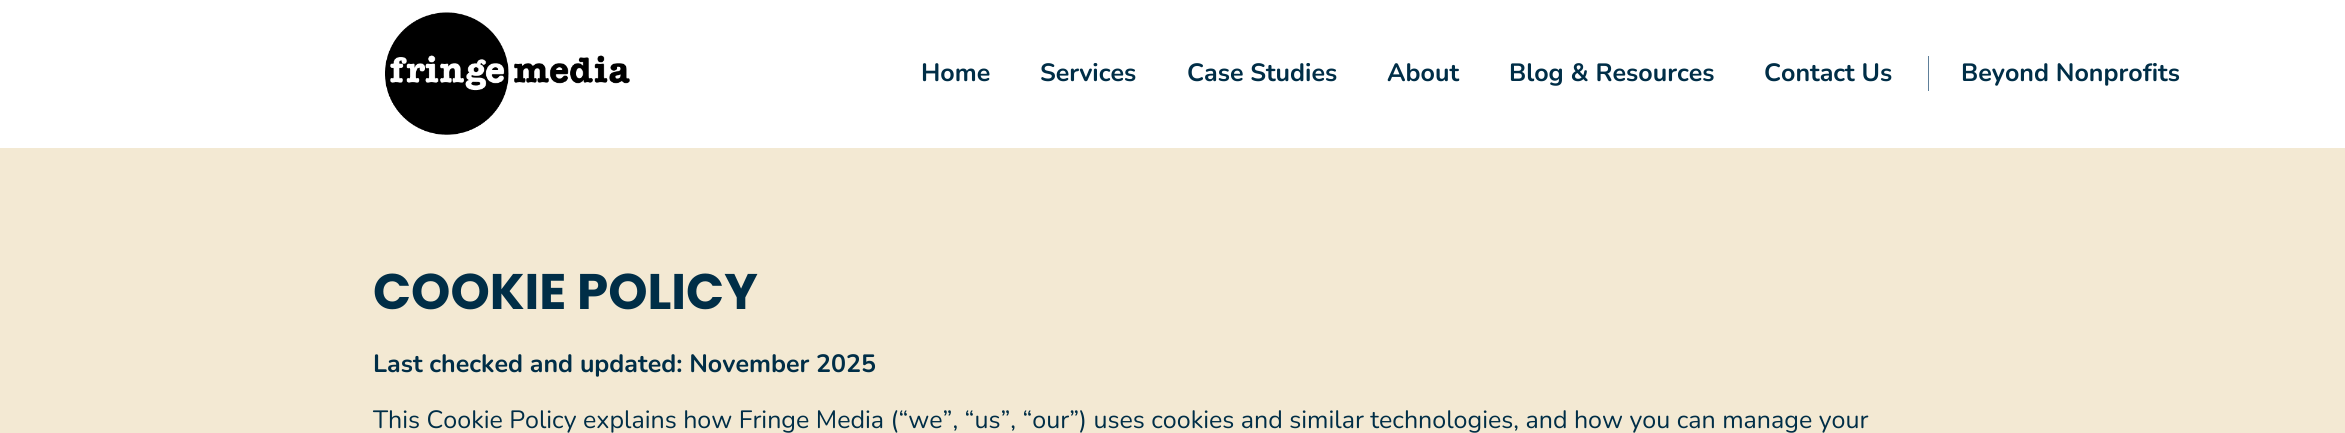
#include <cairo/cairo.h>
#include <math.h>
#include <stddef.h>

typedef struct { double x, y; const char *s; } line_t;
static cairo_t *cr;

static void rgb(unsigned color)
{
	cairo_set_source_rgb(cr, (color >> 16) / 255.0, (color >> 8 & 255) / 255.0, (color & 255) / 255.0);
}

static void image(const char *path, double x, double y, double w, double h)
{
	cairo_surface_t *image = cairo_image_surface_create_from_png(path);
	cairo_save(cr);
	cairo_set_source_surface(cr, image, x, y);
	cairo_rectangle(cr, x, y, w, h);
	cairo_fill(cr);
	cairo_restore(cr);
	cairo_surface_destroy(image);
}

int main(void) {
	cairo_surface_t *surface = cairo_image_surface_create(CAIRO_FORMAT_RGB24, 2345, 433);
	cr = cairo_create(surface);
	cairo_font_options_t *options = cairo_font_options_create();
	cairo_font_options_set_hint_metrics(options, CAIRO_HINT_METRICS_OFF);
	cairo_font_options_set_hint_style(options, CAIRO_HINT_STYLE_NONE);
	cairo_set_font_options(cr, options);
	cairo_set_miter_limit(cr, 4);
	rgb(0xf3e9d3);
	cairo_paint(cr);
	rgb(0xffffff);
	cairo_rectangle(cr, 0, 0, 2345, 148);
	cairo_fill(cr);
	image("img/1.png", 385, 12, 245, 123);
	rgb(0x5e7f99);
	cairo_rectangle(cr, 1928, 56, 1, 35);
	cairo_fill(cr);
	cairo_select_font_face(cr, "Nunito", CAIRO_FONT_SLANT_NORMAL, CAIRO_FONT_WEIGHT_BOLD);
	cairo_set_font_size(cr, 25);
	rgb(0x002e47);
	{
		static const line_t items[] = {
			{921, 81, "Home"},
			{1040, 81, "Services"},
			{1187, 81, "Case Studies"},
			{1387, 81, "About"},
			{1509, 81, "Blog & Resources"},
			{1764, 81, "Contact Us"},
			{1961, 81, "Beyond Nonprofits"},
		};
		for (size_t i = 0; i < sizeof items / sizeof *items; i++) {
			cairo_move_to(cr, items[i].x, items[i].y);
			cairo_show_text(cr, items[i].s);
		}
	}
	cairo_select_font_face(cr, "Poppins", CAIRO_FONT_SLANT_NORMAL, CAIRO_FONT_WEIGHT_BOLD);
	cairo_set_font_size(cr, 50);
	cairo_move_to(cr, 373, 309);
	cairo_show_text(cr, "COOKIE POLICY");
	cairo_select_font_face(cr, "Nunito", CAIRO_FONT_SLANT_NORMAL, CAIRO_FONT_WEIGHT_BOLD);
	cairo_set_font_size(cr, 25);
	cairo_move_to(cr, 373, 372);
	cairo_show_text(cr, "Last checked and updated: November 2025");
	cairo_select_font_face(cr, "Nunito", CAIRO_FONT_SLANT_NORMAL, CAIRO_FONT_WEIGHT_NORMAL);
	cairo_move_to(cr, 373, 428);
	cairo_show_text(cr, "This Cookie Policy explains how Fringe Media (“we”, “us”, “our”) uses cookies and similar technologies, and how you can manage your");
	cairo_surface_write_to_png(surface, "page.png");
	cairo_font_options_destroy(options);
	cairo_destroy(cr);
	cairo_surface_destroy(surface);
	return 0;
}
